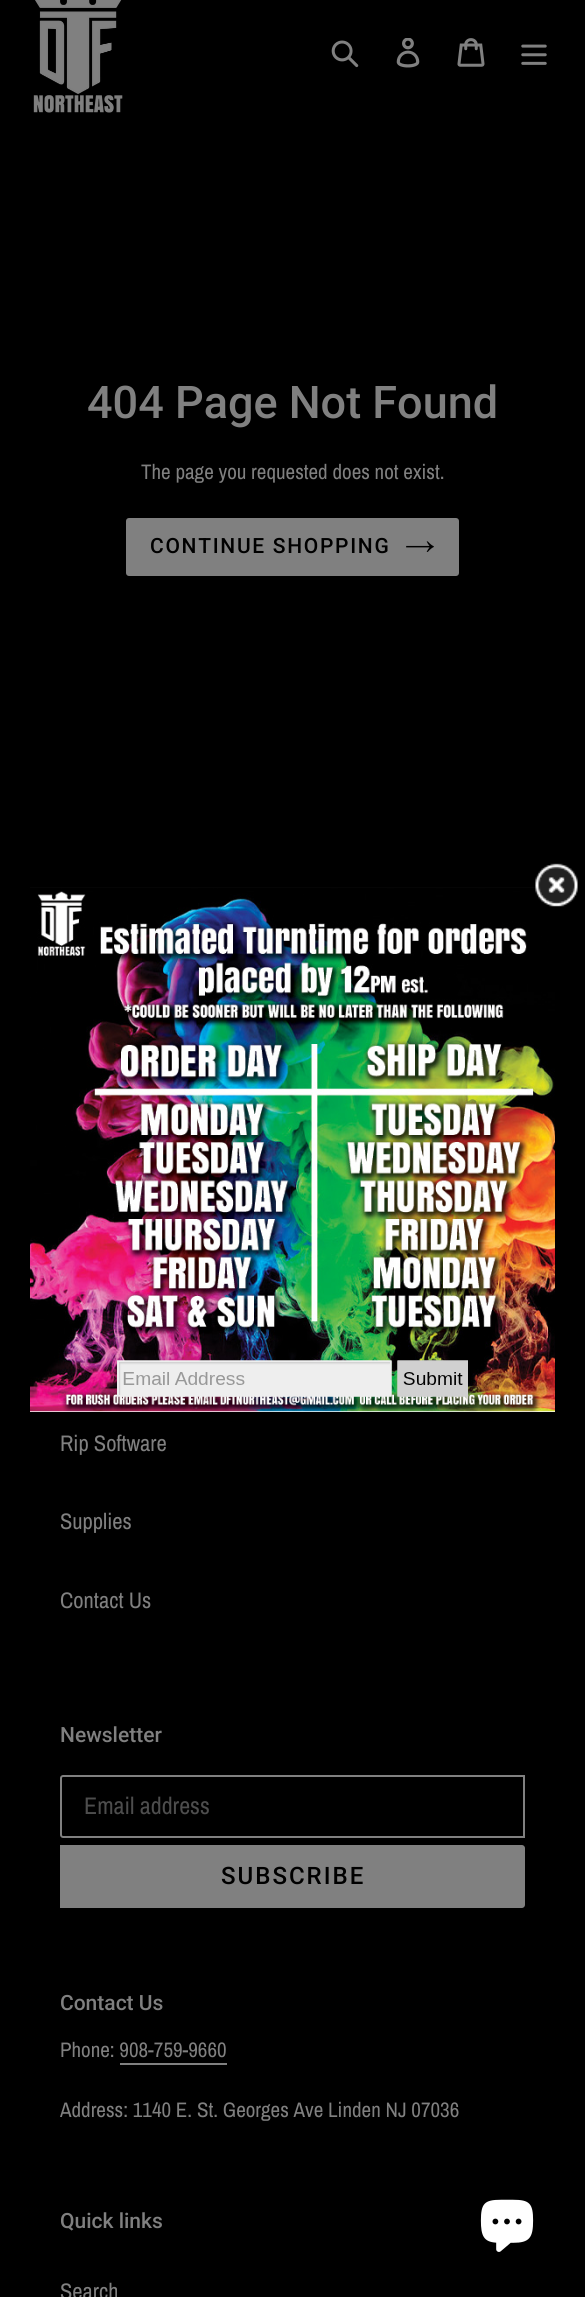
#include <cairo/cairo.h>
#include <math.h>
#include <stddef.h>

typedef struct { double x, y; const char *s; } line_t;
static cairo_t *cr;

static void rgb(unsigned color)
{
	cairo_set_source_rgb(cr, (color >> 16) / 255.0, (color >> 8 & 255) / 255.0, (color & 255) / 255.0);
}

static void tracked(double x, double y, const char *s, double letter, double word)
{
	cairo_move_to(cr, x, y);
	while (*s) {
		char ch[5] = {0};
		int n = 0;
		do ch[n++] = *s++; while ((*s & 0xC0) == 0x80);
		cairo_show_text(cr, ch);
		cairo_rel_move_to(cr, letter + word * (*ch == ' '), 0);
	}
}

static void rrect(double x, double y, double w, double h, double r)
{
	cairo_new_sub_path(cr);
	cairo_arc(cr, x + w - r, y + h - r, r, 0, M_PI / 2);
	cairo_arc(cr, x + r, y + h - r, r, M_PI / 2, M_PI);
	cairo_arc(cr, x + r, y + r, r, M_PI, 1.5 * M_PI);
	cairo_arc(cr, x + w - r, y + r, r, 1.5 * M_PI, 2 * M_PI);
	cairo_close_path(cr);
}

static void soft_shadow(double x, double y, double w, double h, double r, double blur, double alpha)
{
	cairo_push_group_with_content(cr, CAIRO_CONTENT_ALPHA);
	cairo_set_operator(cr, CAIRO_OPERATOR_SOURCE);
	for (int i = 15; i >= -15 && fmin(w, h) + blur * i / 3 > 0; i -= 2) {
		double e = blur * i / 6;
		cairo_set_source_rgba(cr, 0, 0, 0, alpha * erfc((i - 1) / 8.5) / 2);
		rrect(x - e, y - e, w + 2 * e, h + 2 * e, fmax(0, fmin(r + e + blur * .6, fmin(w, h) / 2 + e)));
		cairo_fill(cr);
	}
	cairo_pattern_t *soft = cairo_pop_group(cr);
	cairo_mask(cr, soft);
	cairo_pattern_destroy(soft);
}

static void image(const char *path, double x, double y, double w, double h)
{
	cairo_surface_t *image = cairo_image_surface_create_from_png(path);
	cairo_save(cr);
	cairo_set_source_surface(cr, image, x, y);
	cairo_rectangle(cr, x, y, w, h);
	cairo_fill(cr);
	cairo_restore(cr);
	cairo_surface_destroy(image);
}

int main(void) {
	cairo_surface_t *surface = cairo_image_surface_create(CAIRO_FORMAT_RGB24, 585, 2297);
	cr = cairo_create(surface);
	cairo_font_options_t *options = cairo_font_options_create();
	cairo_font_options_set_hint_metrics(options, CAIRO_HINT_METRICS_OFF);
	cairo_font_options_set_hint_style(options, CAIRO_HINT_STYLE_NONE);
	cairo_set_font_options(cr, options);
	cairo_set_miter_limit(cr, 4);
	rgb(0x000000);
	cairo_paint(cr);
	image("img/1.png", 33, 0, 90, 113);
	image("img/2.png", 331, 40, 28, 28);
	image("img/3.png", 396, 38, 24, 30);
	image("img/4.png", 457, 38, 28, 29);
	image("img/5.png", 521, 44, 26, 21);
	rgb(0x808080);
	rrect(126, 518, 333, 58, 3);
	cairo_fill(cr);
	image("img/6.png", 406, 541, 28, 11);
	cairo_new_path(cr);
	cairo_move_to(cr, 63, 1776);
	cairo_line_to(cr, 524, 1776);
	cairo_line_to(cr, 524, 1837);
	cairo_line_to(cr, 63, 1837);
	cairo_curve_to(cr, 62, 1837, 61, 1836, 61, 1835);
	cairo_line_to(cr, 61, 1778);
	cairo_curve_to(cr, 61, 1777, 62, 1776, 63, 1776);
	cairo_close_path(cr);
	cairo_stroke(cr);
	cairo_new_path(cr);
	cairo_move_to(cr, 60, 1845);
	cairo_line_to(cr, 522, 1845);
	cairo_curve_to(cr, 523.5, 1845, 525, 1846.5, 525, 1848);
	cairo_line_to(cr, 525, 1905);
	cairo_curve_to(cr, 525, 1906.5, 523.5, 1908, 522, 1908);
	cairo_line_to(cr, 60, 1908);
	cairo_close_path(cr);
	cairo_fill(cr);
	cairo_rectangle(cr, 120, 2063, 107, 2);
	cairo_fill(cr);
	rgb(0x000000);
	soft_shadow(30, 902, 525, 525, 0, 19, 0.5);
	rgb(0xf9f9f9);
	cairo_rectangle(cr, 30, 1411, 525, 1);
	cairo_fill(cr);
	image("img/7.png", 30, 887, 525, 525);
	image("img/8.png", 535, 863, 43, 44);
	image("img/9.png", 480, 2199, 54, 53);
	cairo_select_font_face(cr, "Roboto Medium", CAIRO_FONT_SLANT_NORMAL, CAIRO_FONT_WEIGHT_NORMAL);
	cairo_set_font_size(cr, 45);
	rgb(0x808080);
	cairo_move_to(cr, 87, 418);
	cairo_show_text(cr, "404 Page Not Found");
	cairo_select_font_face(cr, "Archivo Narrow", CAIRO_FONT_SLANT_NORMAL, CAIRO_FONT_WEIGHT_NORMAL);
	cairo_set_font_size(cr, 21);
	cairo_move_to(cr, 141, 479);
	cairo_show_text(cr, "The page you requested does not exist.");
	cairo_select_font_face(cr, "Roboto Medium", CAIRO_FONT_SLANT_NORMAL, CAIRO_FONT_WEIGHT_NORMAL);
	rgb(0x000000);
	tracked(150, 553, "CONTINUE SHOPPING", 1.7, 0);
	cairo_select_font_face(cr, "Archivo Narrow", CAIRO_FONT_SLANT_NORMAL, CAIRO_FONT_WEIGHT_NORMAL);
	cairo_set_font_size(cr, 22.5);
	rgb(0x808080);
	{
		static const line_t items[] = {
			{60, 1451, "Rip Software"},
			{60, 1529, "Supplies"},
			{60, 1608, "Contact Us"},
		};
		for (size_t i = 0; i < sizeof items / sizeof *items; i++) {
			cairo_move_to(cr, items[i].x, items[i].y);
			cairo_show_text(cr, items[i].s);
		}
	}
	cairo_select_font_face(cr, "Roboto Medium", CAIRO_FONT_SLANT_NORMAL, CAIRO_FONT_WEIGHT_NORMAL);
	cairo_set_font_size(cr, 21);
	cairo_move_to(cr, 60, 1742);
	cairo_show_text(cr, "Newsletter");
	cairo_select_font_face(cr, "Archivo Narrow", CAIRO_FONT_SLANT_NORMAL, CAIRO_FONT_WEIGHT_NORMAL);
	cairo_set_font_size(cr, 24);
	rgb(0x4d4d4d);
	cairo_move_to(cr, 84, 1814);
	cairo_show_text(cr, "Email address");
	cairo_select_font_face(cr, "Roboto Medium", CAIRO_FONT_SLANT_NORMAL, CAIRO_FONT_WEIGHT_NORMAL);
	rgb(0x000000);
	tracked(221, 1884, "SUBSCRIBE", 2, 0);
	cairo_set_font_size(cr, 21);
	rgb(0x808080);
	cairo_move_to(cr, 60, 2010);
	cairo_show_text(cr, "Contact Us");
	cairo_select_font_face(cr, "Archivo Narrow", CAIRO_FONT_SLANT_NORMAL, CAIRO_FONT_WEIGHT_NORMAL);
	cairo_move_to(cr, 60, 2057);
	cairo_show_text(cr, "Phone: 908-759-9660");
	cairo_move_to(cr, 60, 2117);
	cairo_show_text(cr, "Address: 1140 E. St. Georges Ave Linden NJ 07036");
	cairo_select_font_face(cr, "Roboto Medium", CAIRO_FONT_SLANT_NORMAL, CAIRO_FONT_WEIGHT_NORMAL);
	cairo_move_to(cr, 60, 2228);
	cairo_show_text(cr, "Quick links");
	cairo_select_font_face(cr, "Archivo Narrow", CAIRO_FONT_SLANT_NORMAL, CAIRO_FONT_WEIGHT_NORMAL);
	cairo_set_font_size(cr, 22.5);
	cairo_move_to(cr, 60, 2299);
	cairo_show_text(cr, "Search");
	cairo_surface_write_to_png(surface, "page.png");
	cairo_font_options_destroy(options);
	cairo_destroy(cr);
	cairo_surface_destroy(surface);
	return 0;
}
